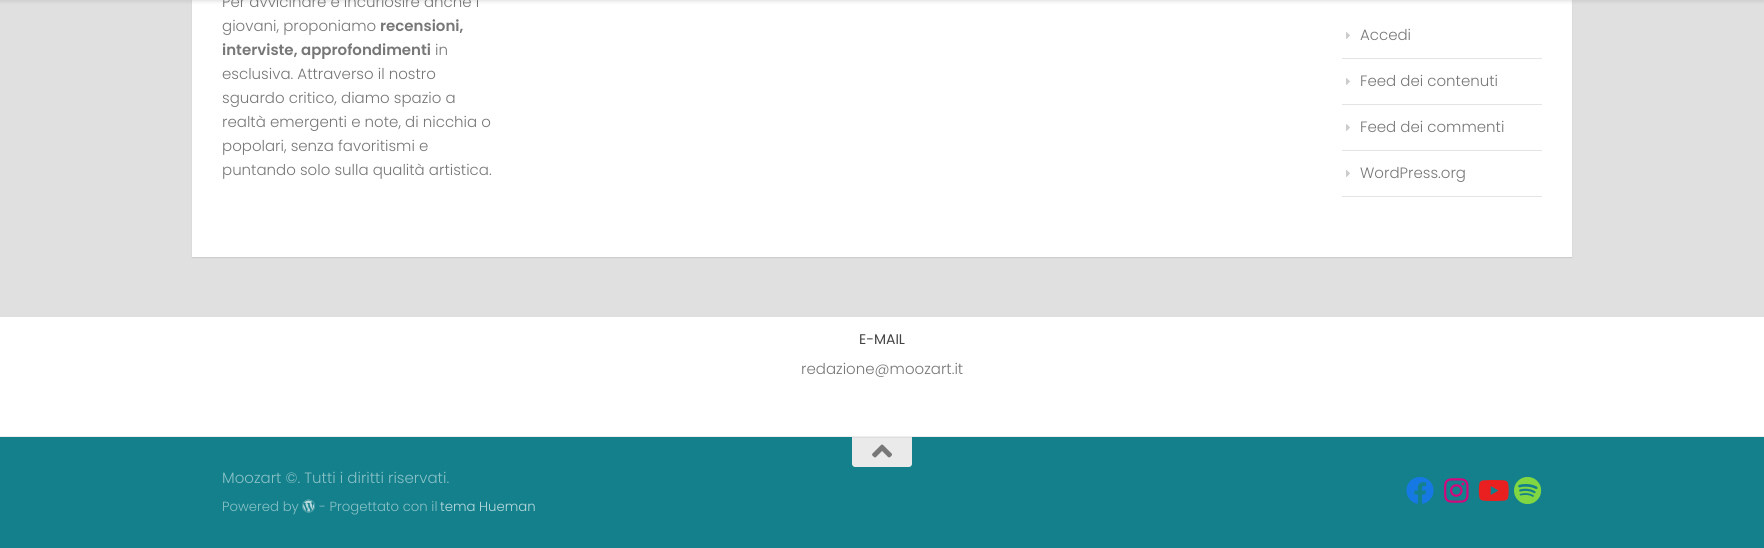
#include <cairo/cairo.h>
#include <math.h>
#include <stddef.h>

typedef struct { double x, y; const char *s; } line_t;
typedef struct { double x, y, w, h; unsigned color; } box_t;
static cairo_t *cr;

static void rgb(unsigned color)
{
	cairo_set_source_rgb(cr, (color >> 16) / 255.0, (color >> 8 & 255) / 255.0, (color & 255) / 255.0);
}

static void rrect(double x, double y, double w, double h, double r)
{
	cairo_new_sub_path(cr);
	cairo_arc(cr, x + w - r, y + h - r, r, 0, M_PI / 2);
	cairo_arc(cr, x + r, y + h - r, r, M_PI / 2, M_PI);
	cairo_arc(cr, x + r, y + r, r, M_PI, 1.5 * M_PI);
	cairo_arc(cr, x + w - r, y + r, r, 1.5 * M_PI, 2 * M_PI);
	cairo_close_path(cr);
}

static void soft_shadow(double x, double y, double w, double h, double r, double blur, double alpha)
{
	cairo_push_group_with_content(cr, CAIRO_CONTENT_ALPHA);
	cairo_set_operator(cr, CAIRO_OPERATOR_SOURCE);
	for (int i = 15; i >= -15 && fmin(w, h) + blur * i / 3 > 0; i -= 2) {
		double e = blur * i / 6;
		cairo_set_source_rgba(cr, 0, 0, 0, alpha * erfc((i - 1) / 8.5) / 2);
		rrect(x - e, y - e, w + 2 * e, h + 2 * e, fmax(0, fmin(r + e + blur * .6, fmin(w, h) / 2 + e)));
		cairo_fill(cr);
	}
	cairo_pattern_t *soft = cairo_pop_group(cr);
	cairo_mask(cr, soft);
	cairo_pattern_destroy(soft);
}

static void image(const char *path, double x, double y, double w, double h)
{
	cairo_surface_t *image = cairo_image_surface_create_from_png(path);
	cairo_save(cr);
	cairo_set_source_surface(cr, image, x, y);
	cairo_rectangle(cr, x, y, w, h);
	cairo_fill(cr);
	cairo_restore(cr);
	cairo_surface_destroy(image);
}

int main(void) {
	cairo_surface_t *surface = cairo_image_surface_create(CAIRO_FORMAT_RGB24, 1764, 548);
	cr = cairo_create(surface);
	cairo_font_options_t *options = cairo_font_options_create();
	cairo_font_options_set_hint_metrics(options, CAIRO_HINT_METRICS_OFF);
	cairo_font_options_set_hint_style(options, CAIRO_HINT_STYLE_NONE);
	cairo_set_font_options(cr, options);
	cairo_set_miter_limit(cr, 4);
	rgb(0xe0e0e0);
	cairo_paint(cr);
	rgb(0x000000);
	soft_shadow(192, -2, 1380, 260, 0, 0.5, 0.1);
	rgb(0xffffff);
	cairo_rectangle(cr, 192, 0, 1380, 257);
	cairo_fill(cr);
	rgb(0xe4e4e4);
	cairo_rectangle(cr, 1342, 58, 200, 1);
	cairo_fill(cr);
	image("img/1.png", 1346, 32, 4, 7);
	cairo_rectangle(cr, 1342, 104, 200, 1);
	cairo_fill(cr);
	image("img/1.png", 1346, 78, 4, 7);
	cairo_rectangle(cr, 1342, 150, 200, 1);
	cairo_fill(cr);
	image("img/1.png", 1346, 124, 4, 7);
	cairo_rectangle(cr, 1342, 196, 200, 1);
	cairo_fill(cr);
	image("img/1.png", 1346, 170, 4, 7);
	{
		static const box_t items[] = {
			{0, 317, 1764, 119, 0xffffff},
			{0, 436, 1764, 1, 0xeeeeee},
			{0, 437, 1764, 111, 0x13808c},
		};
		for (size_t i = 0; i < sizeof items / sizeof *items; i++) {
			rgb(items[i].color);
			cairo_rectangle(cr, items[i].x, items[i].y, items[i].w, items[i].h);
			cairo_fill(cr);
		}
	}
	rgb(0xeaeaea);
	cairo_new_path(cr);
	cairo_move_to(cr, 852, 437);
	cairo_line_to(cr, 912, 437);
	cairo_line_to(cr, 912, 464);
	cairo_curve_to(cr, 912, 465.5, 910.5, 467, 909, 467);
	cairo_line_to(cr, 855, 467);
	cairo_curve_to(cr, 853.5, 467, 852, 465.5, 852, 464);
	cairo_close_path(cr);
	cairo_fill(cr);
	rgb(0xdedede);
	cairo_rectangle(cr, 852, 437, 60, 1);
	cairo_fill(cr);
	image("img/2.png", 872, 444, 20, 14);
	image("img/3.png", 302, 499, 13, 14);
	image("img/4.png", 1406, 477, 28, 27);
	image("img/5.png", 1444, 478, 25, 25);
	image("img/6.png", 1478, 480, 31, 21);
	image("img/7.png", 1514, 476, 28, 29);
	cairo_select_font_face(cr, "Poppins Light", CAIRO_FONT_SLANT_NORMAL, CAIRO_FONT_WEIGHT_NORMAL);
	cairo_set_font_size(cr, 15);
	rgb(0x777777);
	cairo_move_to(cr, 222, 7);
	cairo_show_text(cr, "Per avvicinare e incuriosire anche i");
	cairo_set_source_rgba(cr, 1, 1, 1, 0.15);
	cairo_rectangle(cr, 0, 0, 1764, 1);
	cairo_fill(cr);
	rgb(0x000000);
	soft_shadow(0, -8, 1764, 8, 0, 2.5, 0.2);
	rgb(0x777777);
	cairo_move_to(cr, 222, 31);
	cairo_show_text(cr, "giovani, proponiamo");
	cairo_select_font_face(cr, "Poppins SemiBold", CAIRO_FONT_SLANT_NORMAL, CAIRO_FONT_WEIGHT_NORMAL);
	cairo_move_to(cr, 380, 31);
	cairo_show_text(cr, "recensioni,");
	cairo_move_to(cr, 222, 55);
	cairo_show_text(cr, "interviste, approfondimenti");
	cairo_select_font_face(cr, "Poppins Light", CAIRO_FONT_SLANT_NORMAL, CAIRO_FONT_WEIGHT_NORMAL);
	{
		static const line_t items[] = {
			{435, 55, "in"},
			{222, 79, "esclusiva. Attraverso il nostro"},
			{222, 103, "sguardo critico, diamo spazio a"},
			{222, 127, "realtà emergenti e note, di nicchia o"},
			{222, 151, "popolari, senza favoritismi e"},
			{222, 175, "puntando solo sulla qualità artistica."},
			{1360, 40, "Accedi"},
			{1360, 86, "Feed dei contenuti"},
			{1360, 132, "Feed dei commenti"},
			{1360, 178, "WordPress.org"},
		};
		for (size_t i = 0; i < sizeof items / sizeof *items; i++) {
			cairo_move_to(cr, items[i].x, items[i].y);
			cairo_show_text(cr, items[i].s);
		}
	}
	cairo_select_font_face(cr, "Poppins", CAIRO_FONT_SLANT_NORMAL, CAIRO_FONT_WEIGHT_NORMAL);
	cairo_set_font_size(cr, 14);
	rgb(0x444444);
	cairo_move_to(cr, 859, 344);
	cairo_show_text(cr, "E-MAIL");
	cairo_select_font_face(cr, "Poppins Light", CAIRO_FONT_SLANT_NORMAL, CAIRO_FONT_WEIGHT_NORMAL);
	cairo_set_font_size(cr, 15);
	rgb(0x777777);
	cairo_move_to(cr, 801, 374);
	cairo_show_text(cr, "redazione@moozart.it");
	rgb(0x89c0c6);
	cairo_move_to(cr, 222, 483);
	cairo_show_text(cr, "Moozart ©. Tutti i diritti riservati.");
	cairo_set_font_size(cr, 13.25);
	cairo_move_to(cr, 222, 511);
	cairo_show_text(cr, "Powered by");
	cairo_move_to(cr, 319, 511);
	cairo_show_text(cr, "- Progettato con il");
	rgb(0xb8d9dd);
	cairo_move_to(cr, 440, 511);
	cairo_show_text(cr, "tema Hueman");
	cairo_surface_write_to_png(surface, "page.png");
	cairo_font_options_destroy(options);
	cairo_destroy(cr);
	cairo_surface_destroy(surface);
	return 0;
}
